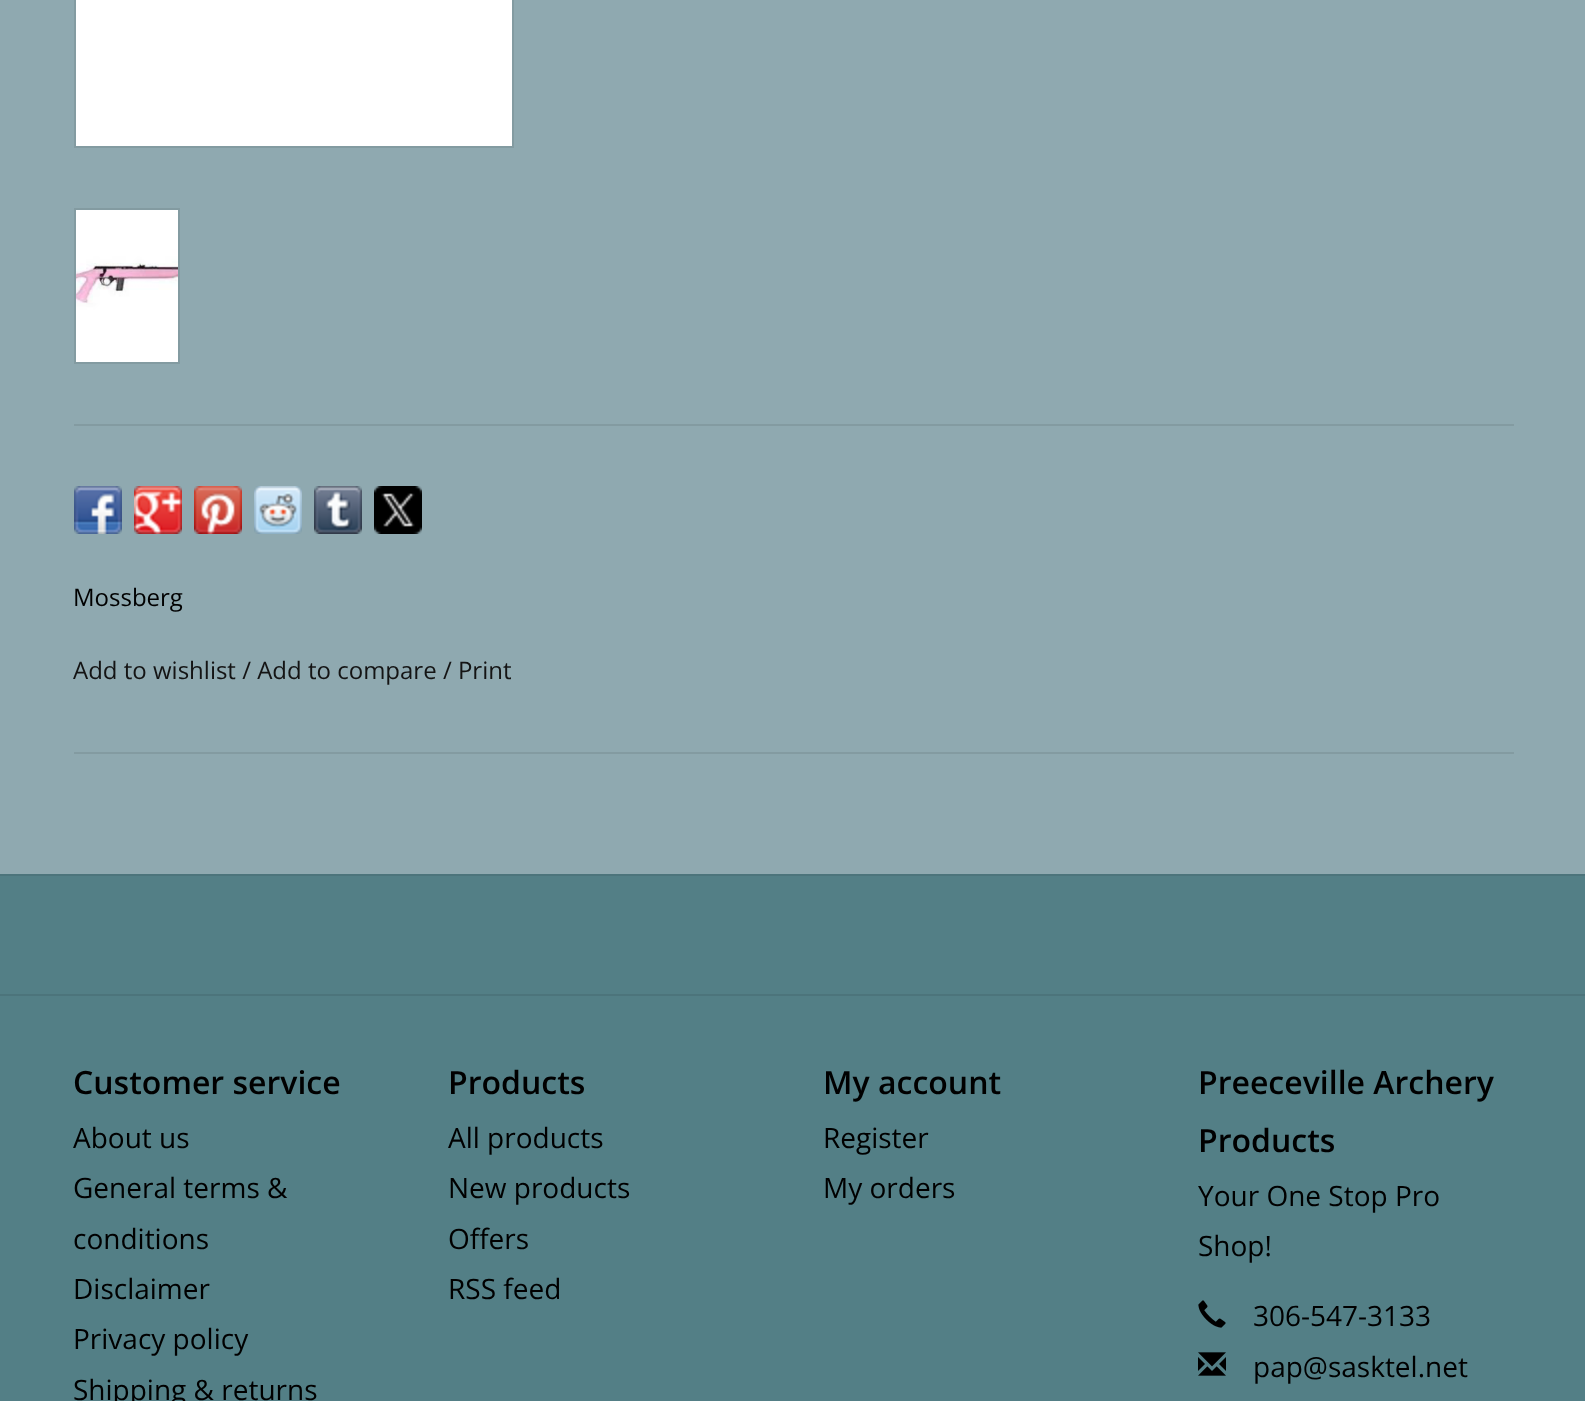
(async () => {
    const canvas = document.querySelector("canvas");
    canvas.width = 1585;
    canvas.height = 1401;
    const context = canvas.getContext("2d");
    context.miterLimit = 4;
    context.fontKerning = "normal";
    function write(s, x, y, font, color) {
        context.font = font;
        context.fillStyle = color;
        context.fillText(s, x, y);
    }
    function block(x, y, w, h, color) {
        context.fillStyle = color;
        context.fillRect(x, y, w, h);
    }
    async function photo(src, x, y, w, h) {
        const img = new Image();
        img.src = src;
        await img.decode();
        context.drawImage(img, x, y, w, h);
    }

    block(0, 0, 1585, 1401, "rgb(143, 169, 176)");
    context.strokeStyle = "rgb(131, 155, 161)";
    context.lineWidth = 2;
    context.strokeRect(75, -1, 438, 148);
    block(76, 0, 436, 146, "rgb(255, 255, 255)");
    context.strokeRect(75, 209, 104, 154);
    await photo("media/1.png", 76, 210, 102, 152);
    block(74, 424, 1440, 2, "rgb(131, 155, 161)");
    block(74, 752, 1440, 2, "rgb(131, 155, 161)");
    await photo("media/2.png", 74, 486, 48, 48);
    await photo("media/3.png", 134, 486, 48, 48);
    await photo("media/4.png", 194, 486, 48, 48);
    await photo("media/5.png", 254, 486, 48, 48);
    await photo("media/6.png", 314, 486, 48, 48);
    await photo("media/7.png", 374, 486, 48, 48);
    write("Mossberg", 73, 606, "24px Open Sans", "rgb(0, 0, 0)");
    write("Add to wishlist / Add to compare / Print", 73, 679, "24px Open Sans", "rgb(20, 20, 20)");
    block(0, 876, 1585, 525, "rgb(83, 127, 134)");
    block(0, 874, 1585, 2, "rgb(76, 116, 123)");
    block(0, 994, 1585, 2, "rgb(76, 116, 123)");
    write("Customer service", 73, 1094, "600 32px Open Sans", "rgb(0, 0, 0)");
    write("About us", 73, 1148, "28px Open Sans", "rgb(0, 0, 0)");
    write("General terms &", 73, 1198, "28px Open Sans", "rgb(0, 0, 0)");
    write("conditions", 73, 1249, "28px Open Sans", "rgb(0, 0, 0)");
    write("Disclaimer", 73, 1299, "28px Open Sans", "rgb(0, 0, 0)");
    write("Privacy policy", 73, 1349, "28px Open Sans", "rgb(0, 0, 0)");
    write("Shipping & returns", 73, 1400, "28px Open Sans", "rgb(0, 0, 0)");
    write("Products", 448, 1094, "600 32px Open Sans", "rgb(0, 0, 0)");
    write("All products", 448, 1148, "28px Open Sans", "rgb(0, 0, 0)");
    write("New products", 448, 1198, "28px Open Sans", "rgb(0, 0, 0)");
    write("Offers", 448, 1249, "28px Open Sans", "rgb(0, 0, 0)");
    write("RSS feed", 448, 1299, "28px Open Sans", "rgb(0, 0, 0)");
    write("My account", 823, 1094, "600 32px Open Sans", "rgb(0, 0, 0)");
    write("Register", 823, 1148, "28px Open Sans", "rgb(0, 0, 0)");
    write("My orders", 823, 1198, "28px Open Sans", "rgb(0, 0, 0)");
    write("Preeceville Archery", 1198, 1094, "600 32px Open Sans", "rgb(0, 0, 0)");
    write("Products", 1198, 1152, "600 32px Open Sans", "rgb(0, 0, 0)");
    write("Your One Stop Pro", 1198, 1206, "28px Open Sans", "rgb(0, 0, 0)");
    write("Shop!", 1198, 1256, "28px Open Sans", "rgb(0, 0, 0)");
    await photo("media/8.png", 1198, 1300, 28, 28);
    write("306-547-3133", 1253, 1326, "28px Open Sans", "rgb(0, 0, 0)");
    await photo("media/9.png", 1198, 1352, 28, 24);
    write("pap@sasktel.net", 1253, 1377, "28px Open Sans", "rgb(0, 0, 0)");
})();
